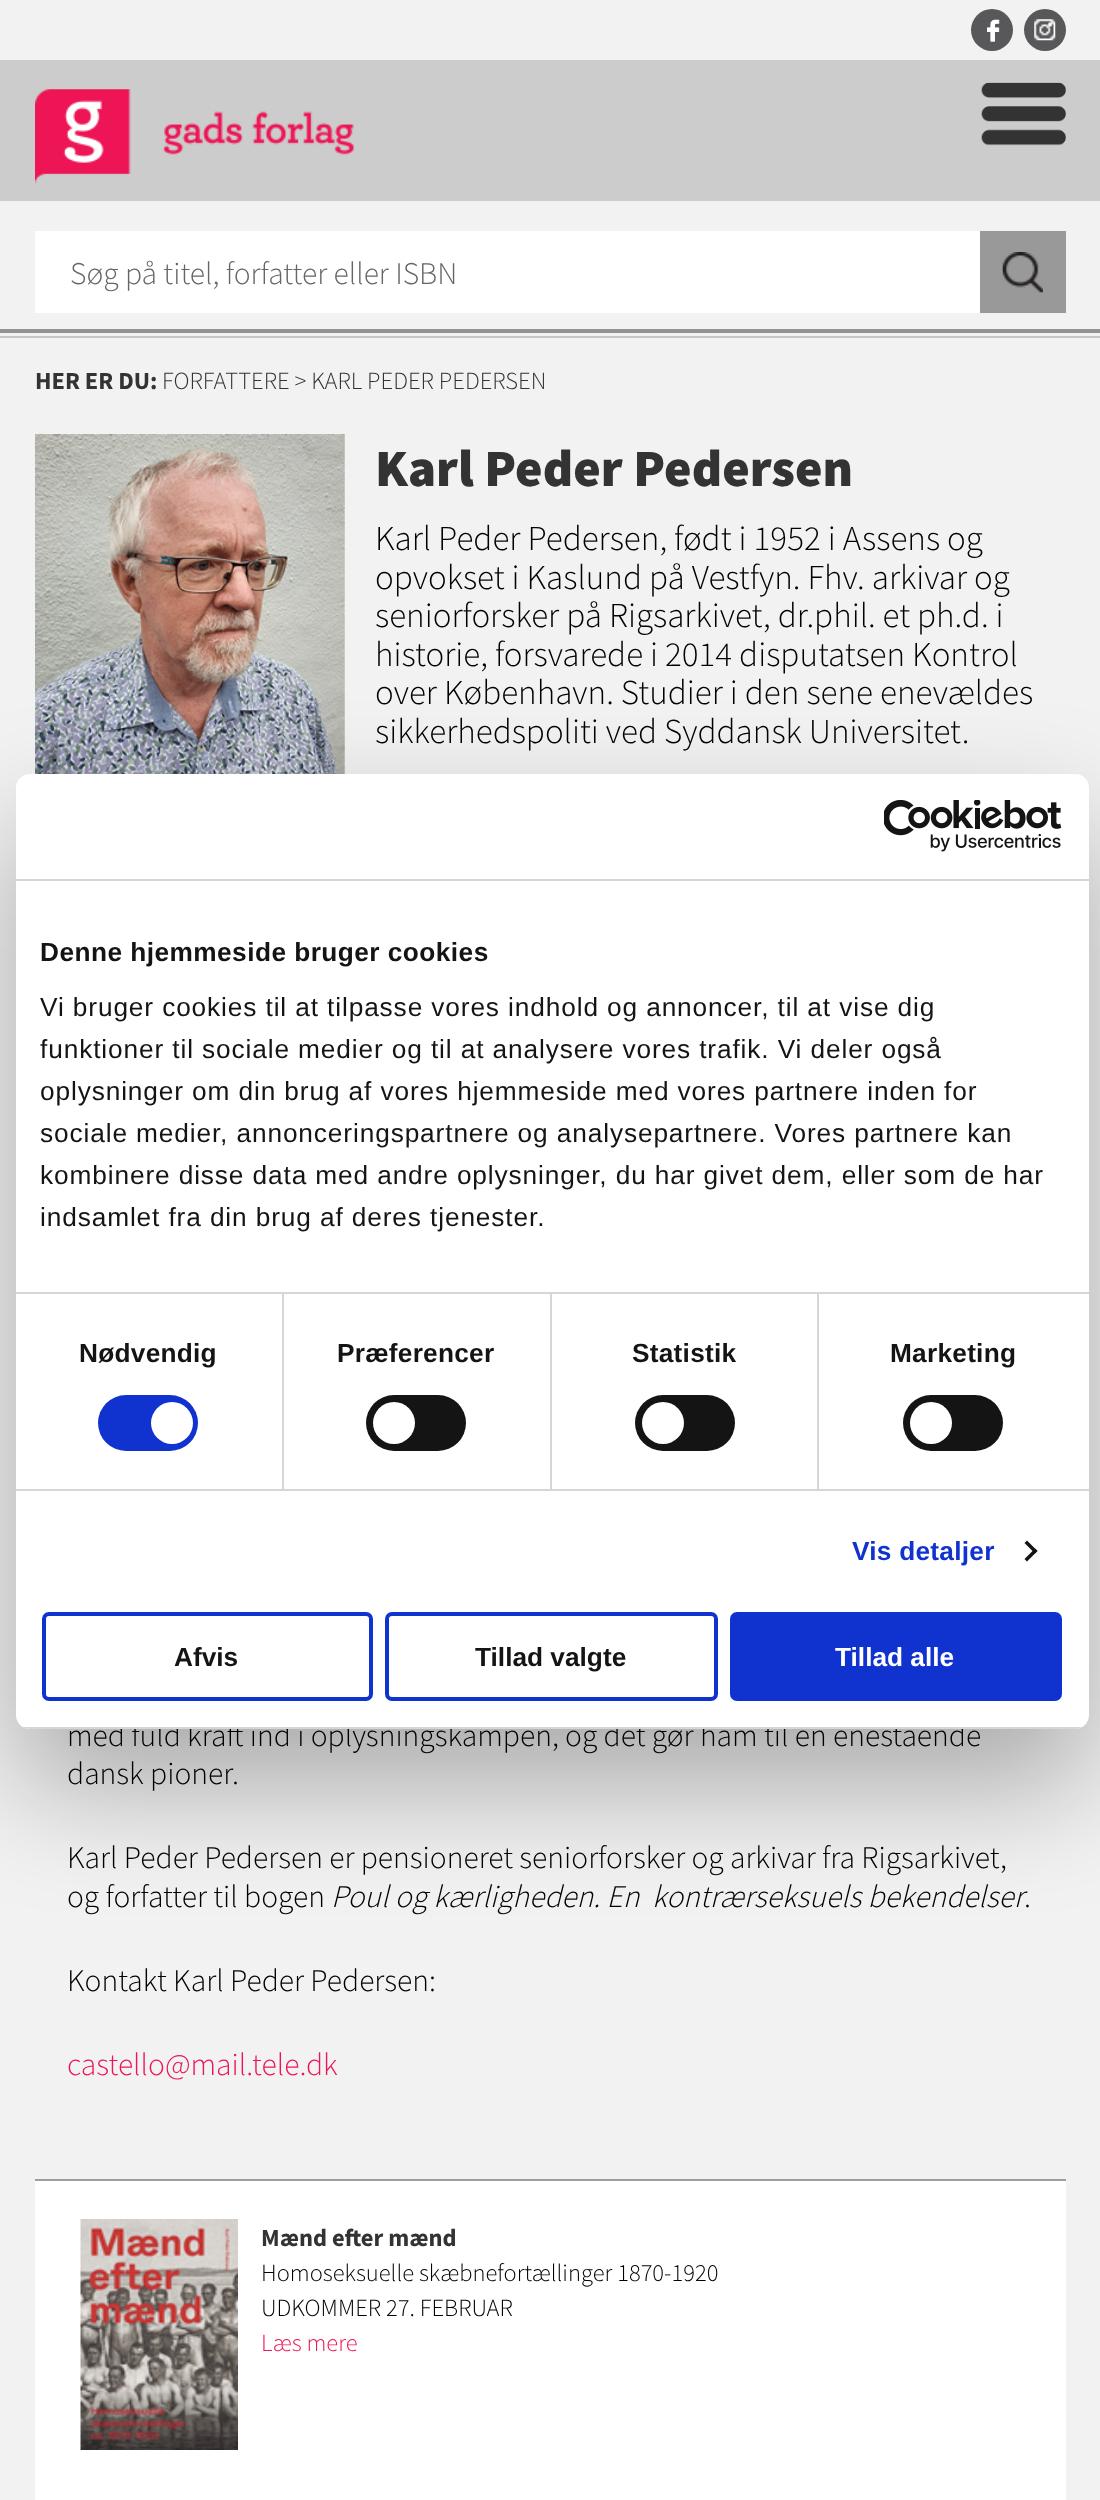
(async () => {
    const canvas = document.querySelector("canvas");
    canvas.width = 1100;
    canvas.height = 2500;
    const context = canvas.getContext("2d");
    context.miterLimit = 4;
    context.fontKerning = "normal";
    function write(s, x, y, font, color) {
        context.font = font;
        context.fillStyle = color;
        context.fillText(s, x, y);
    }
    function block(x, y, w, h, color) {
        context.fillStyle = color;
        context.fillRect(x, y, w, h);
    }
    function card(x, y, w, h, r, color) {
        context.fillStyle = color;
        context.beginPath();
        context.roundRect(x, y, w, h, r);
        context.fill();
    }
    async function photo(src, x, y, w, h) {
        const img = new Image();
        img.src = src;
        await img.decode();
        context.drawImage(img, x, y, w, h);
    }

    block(0, 0, 1100, 2500, "rgb(242, 242, 242)");
    block(0, 329, 1100, 4, "rgb(146, 146, 146)");
    block(0, 60, 1100, 141, "rgb(204, 204, 204)");
    await photo("media/1.png", 981, 82, 85, 64);
    block(0, 336, 1100, 2, "rgb(197, 197, 197)");
    context.fillStyle = "rgb(88, 88, 90)";
    context.beginPath();
    context.arc(992, 30, 21, 0, Math.PI * 2);
    context.fill();
    await photo("media/2.png", 987, 19, 13, 23);
    context.beginPath();
    context.arc(1045, 30, 21, 0, Math.PI * 2);
    context.fill();
    await photo("media/3.png", 1034, 19, 22, 22);
    await photo("media/4.png", 35, 89, 319, 95);
    block(35, 231, 945, 82, "rgb(255, 255, 255)");
    write("Søg på titel, forfatter eller ISBN", 70, 284, "300 31.5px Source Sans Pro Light", "rgb(102, 102, 102)");
    block(980, 231, 86, 82, "rgb(153, 153, 153)");
    await photo("media/5.png", 1002, 252, 41, 41);
    write("HER ER DU:", 35, 389, "bold 24.5px Source Sans Pro", "rgb(51, 51, 51)");
    write("FORFATTERE > KARL PEDER PEDERSEN", 162, 389, "300 24.5px Source Sans Pro Light", "rgb(51, 51, 51)");
    await photo("media/6.png", 35, 434, 310, 340);
    write("Karl Peder Pedersen", 375, 486, "900 52.5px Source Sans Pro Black", "rgb(51, 51, 51)");
    write("Karl Peder Pedersen, født i 1952 i Assens og", 375, 550, "300 35px Source Sans Pro Light", "rgb(0, 0, 0)");
    write("opvokset i Kaslund på Vestfyn. Fhv. arkivar og", 375, 589, "300 35px Source Sans Pro Light", "rgb(0, 0, 0)");
    write("seniorforsker på Rigsarkivet, dr.phil. et ph.d. i", 375, 627, "300 35px Source Sans Pro Light", "rgb(0, 0, 0)");
    write("historie, forsvarede i 2014 disputatsen Kontrol", 375, 666, "300 35px Source Sans Pro Light", "rgb(0, 0, 0)");
    write("over København. Studier i den sene enevældes", 375, 704, "300 35px Source Sans Pro Light", "rgb(0, 0, 0)");
    write("sikkerhedspoliti ved Syddansk Universitet.", 375, 743, "300 35px Source Sans Pro Light", "rgb(0, 0, 0)");
    block(35, 2179, 1031, 2, "rgb(156, 157, 158)");
    write("med fuld kraft ind i oplysningskampen, og det gør ham til en enestående", 67, 1746, "300 31.5px Source Sans Pro Light", "rgb(0, 0, 0)");
    write("dansk pioner.", 67, 1784, "300 31.5px Source Sans Pro Light", "rgb(0, 0, 0)");
    write("Karl Peder Pedersen er pensioneret seniorforsker og arkivar fra Rigsarkivet,", 67, 1868, "300 31.5px Source Sans Pro Light", "rgb(0, 0, 0)");
    write("og forfatter til bogen", 67, 1907, "300 31.5px Source Sans Pro Light", "rgb(0, 0, 0)");
    write("Poul og kærligheden. En  kontrærseksuels bekendelser", 331, 1907, "italic 300 31.5px Source Sans Pro Light", "rgb(0, 0, 0)");
    write(".", 1024, 1907, "300 31.5px Source Sans Pro Light", "rgb(0, 0, 0)");
    write("Kontakt Karl Peder Pedersen:", 67, 1991, "300 31.5px Source Sans Pro Light", "rgb(0, 0, 0)");
    write("castello@mail.tele.dk", 67, 2075, "300 31.5px Source Sans Pro Light", "rgb(237, 21, 86)");
    block(35, 2181, 1031, 319, "rgb(255, 255, 255)");
    await photo("media/7.png", 80, 2219, 158, 231);
    write("Mænd efter mænd", 261, 2246, "bold 24.5px Source Sans Pro", "rgb(51, 51, 51)");
    write("Homoseksuelle skæbnefortællinger 1870-1920", 261, 2281, "300 24.5px Source Sans Pro Light", "rgb(0, 0, 0)");
    write("UDKOMMER 27. FEBRUAR", 261, 2316, "300 24.5px Source Sans Pro Light", "rgb(0, 0, 0)");
    write("Læs mere", 261, 2351, "300 24.5px Source Sans Pro Light", "rgb(237, 21, 86)");
    context.fillStyle = "rgba(0, 0, 0, 0.3)";
    context.filter = "blur(59.5px)";
    context.beginPath();
    context.roundRect(16, 830, 1073, 955, 14);
    context.fill();
    context.filter = "none";
    card(16, 774, 1073, 955, 14, "rgb(255, 255, 255)");
    block(16, 879, 1073, 2, "rgb(214, 214, 214)");
    await photo("media/8.png", 884, 800, 178, 52);
    block(282, 1293, 2, 196, "rgb(214, 214, 214)");
    block(550, 1293, 2, 196, "rgb(214, 214, 214)");
    block(817, 1293, 2, 196, "rgb(214, 214, 214)");
    block(16, 1292, 1073, 2, "rgb(214, 214, 214)");
    context.letterSpacing = "0.45px";
    write("Denne hjemmeside bruger cookies", 40, 961, "bold 26.25px Liberation Sans", "rgb(20, 20, 20)");
    context.letterSpacing = "0.88px";
    write("Vi bruger cookies til at tilpasse vores indhold og annoncer, til at vise dig", 40, 1016, "26.25px Liberation Sans", "rgb(20, 20, 20)");
    write("funktioner til sociale medier og til at analysere vores trafik. Vi deler også", 40, 1058, "26.25px Liberation Sans", "rgb(20, 20, 20)");
    write("oplysninger om din brug af vores hjemmeside med vores partnere inden for", 40, 1100, "26.25px Liberation Sans", "rgb(20, 20, 20)");
    write("sociale medier, annonceringspartnere og analysepartnere. Vores partnere kan", 40, 1142, "26.25px Liberation Sans", "rgb(20, 20, 20)");
    write("kombinere disse data med andre oplysninger, du har givet dem, eller som de har", 40, 1184, "26.25px Liberation Sans", "rgb(20, 20, 20)");
    write("indsamlet fra din brug af deres tjenester.", 40, 1226, "26.25px Liberation Sans", "rgb(20, 20, 20)");
    block(16, 1489, 1073, 2, "rgb(214, 214, 214)");
    context.letterSpacing = "0.25px";
    write("Nødvendig", 79, 1362, "bold 26.25px Liberation Sans", "rgb(20, 20, 20)");
    card(98, 1395, 100, 56, 28, "rgb(16, 50, 207)");
    context.fillStyle = "rgb(255, 255, 255)";
    context.beginPath();
    context.arc(172, 1423, 21, 0, Math.PI * 2);
    context.fill();
    write("Præferencer", 337, 1362, "bold 26.25px Liberation Sans", "rgb(20, 20, 20)");
    card(366, 1395, 100, 56, 28, "rgb(20, 20, 20)");
    context.fillStyle = "rgb(255, 255, 255)";
    context.beginPath();
    context.arc(394, 1423, 21, 0, Math.PI * 2);
    context.fill();
    write("Statistik", 632, 1362, "bold 26.25px Liberation Sans", "rgb(20, 20, 20)");
    card(635, 1395, 100, 56, 28, "rgb(20, 20, 20)");
    context.fillStyle = "rgb(255, 255, 255)";
    context.beginPath();
    context.arc(663, 1423, 21, 0, Math.PI * 2);
    context.fill();
    write("Marketing", 890, 1362, "bold 26.25px Liberation Sans", "rgb(20, 20, 20)");
    card(903, 1395, 100, 56, 28, "rgb(20, 20, 20)");
    context.fillStyle = "rgb(255, 255, 255)";
    context.beginPath();
    context.arc(931, 1423, 21, 0, Math.PI * 2);
    context.fill();
    write("Vis detaljer", 852, 1560, "bold 26.25px Liberation Sans", "rgb(16, 50, 207)");
    context.fillStyle = "rgb(20, 20, 20)";
    context.beginPath();
    context.moveTo(1027, 1540.5);
    context.lineTo(1037.5, 1551);
    context.lineTo(1035, 1553.5);
    context.lineTo(1024.5, 1543);
    context.closePath();
    context.fill();
    context.beginPath();
    context.moveTo(1035, 1548.5);
    context.lineTo(1037.5, 1551);
    context.lineTo(1027, 1561.5);
    context.lineTo(1024.5, 1559);
    context.closePath();
    context.fill();
    context.save();
    context.beginPath();
    context.roundRect(16, 774, 1073, 955, 14);
    context.clip();
    block(16, 1727, 1073, 2, "rgb(214, 214, 214)");
    context.restore();
    context.beginPath();
    context.roundRect(44, 1614, 327, 85, 5);
    context.strokeStyle = "rgb(16, 50, 207)";
    context.lineWidth = 4;
    context.stroke();
    context.letterSpacing = "0px";
    write("Afvis", 174, 1666, "bold 26.25px Liberation Sans", "rgb(20, 20, 20)");
    context.beginPath();
    context.roundRect(387, 1614, 329, 85, 5);
    context.stroke();
    write("Tillad valgte", 475, 1666, "bold 26.25px Liberation Sans", "rgb(20, 20, 20)");
    context.fillStyle = "rgb(16, 50, 207)";
    context.beginPath();
    context.roundRect(732, 1614, 328, 85, 5);
    context.fill();
    context.stroke();
    write("Tillad alle", 835, 1666, "bold 26.25px Liberation Sans", "rgb(255, 255, 255)");
})();
